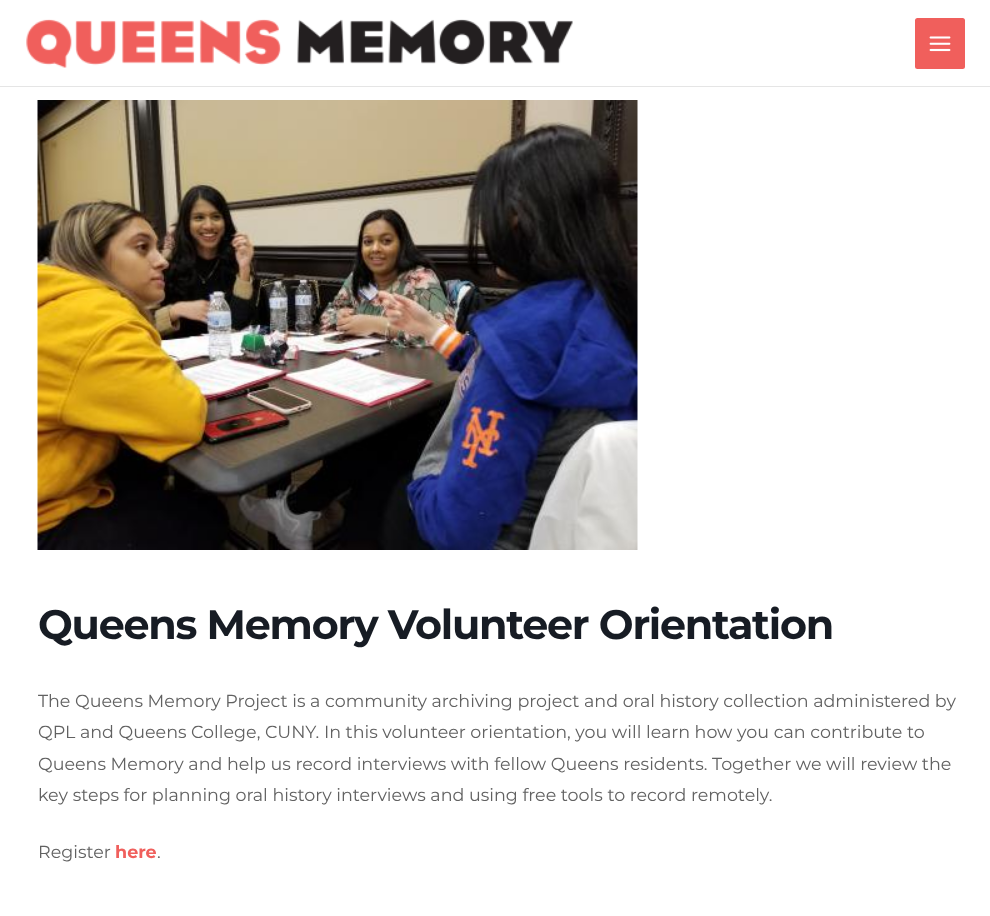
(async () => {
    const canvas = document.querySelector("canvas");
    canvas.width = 990;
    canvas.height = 916;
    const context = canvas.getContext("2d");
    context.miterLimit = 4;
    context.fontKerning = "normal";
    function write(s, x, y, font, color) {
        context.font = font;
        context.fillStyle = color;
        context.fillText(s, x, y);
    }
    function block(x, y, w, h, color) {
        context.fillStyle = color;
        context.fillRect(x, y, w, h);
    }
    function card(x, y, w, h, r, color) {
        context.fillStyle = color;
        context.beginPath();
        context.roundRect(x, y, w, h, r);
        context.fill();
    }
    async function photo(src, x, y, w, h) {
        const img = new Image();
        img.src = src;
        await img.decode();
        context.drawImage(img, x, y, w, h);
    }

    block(0, 0, 990, 916, "rgb(255, 255, 255)");
    block(0, 86, 990, 1, "rgb(229, 229, 229)");
    await photo("media/1.png", 26, 19, 547, 49);
    card(915, 18, 50, 51, 2.5, "rgb(240, 95, 92)");
    await photo("media/2.png", 929, 36, 22, 16);
    await photo("media/3.png", 37, 100, 601, 450);
    context.letterSpacing = "-1.25px";
    write("Queens Memory Volunteer Orientation", 38, 639, "bold 41.25px Montserrat", "rgb(23, 28, 36)");
    context.letterSpacing = "0px";
    write("The Queens Memory Project is a community archiving project and oral history collection administered by", 38, 707, "17.5px Montserrat", "rgb(97, 97, 97)");
    write("QPL and Queens College, CUNY. In this volunteer orientation, you will learn how you can contribute to", 38, 738, "17.5px Montserrat", "rgb(97, 97, 97)");
    write("Queens Memory and help us record interviews with fellow Queens residents. Together we will review the", 38, 770, "17.5px Montserrat", "rgb(97, 97, 97)");
    write("key steps for planning oral history interviews and using free tools to record remotely.", 38, 801, "17.5px Montserrat", "rgb(97, 97, 97)");
    write("Register", 38, 858, "17.5px Montserrat", "rgb(97, 97, 97)");
    write("here", 115, 858, "bold 17.5px Montserrat", "rgb(240, 95, 92)");
    write(".", 157, 858, "17.5px Montserrat", "rgb(97, 97, 97)");
})();
